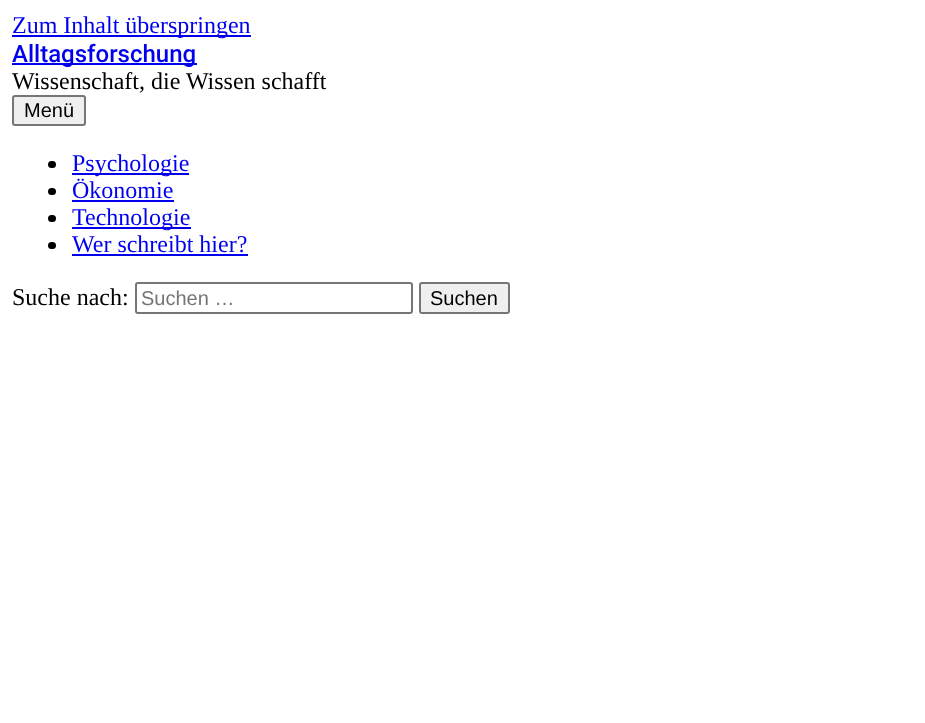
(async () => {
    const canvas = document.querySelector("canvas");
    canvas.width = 925;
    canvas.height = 723;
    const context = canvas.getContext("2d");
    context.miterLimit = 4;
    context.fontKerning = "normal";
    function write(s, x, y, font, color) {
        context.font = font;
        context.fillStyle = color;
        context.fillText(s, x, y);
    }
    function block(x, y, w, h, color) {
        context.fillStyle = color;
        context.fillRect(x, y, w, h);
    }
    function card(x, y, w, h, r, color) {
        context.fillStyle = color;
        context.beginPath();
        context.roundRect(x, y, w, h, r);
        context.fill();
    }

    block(0, 0, 925, 723, "rgb(255, 255, 255)");
    block(12, 35, 239, 2, "rgb(0, 0, 238)");
    write("Zum Inhalt überspringen", 12, 33, "24px Liberation Serif", "rgb(0, 0, 238)");
    block(12, 63, 185, 2, "rgb(0, 0, 238)");
    write("Alltagsforschung", 12, 62, "500 24px Roboto", "rgb(0, 0, 238)");
    write("Wissenschaft, die Wissen schafft", 12, 89, "24px Liberation Serif", "rgb(0, 0, 0)");
    context.fillStyle = "rgb(239, 239, 239)";
    context.beginPath();
    context.roundRect(13, 96, 72, 29, 2);
    context.fill();
    context.strokeStyle = "rgb(118, 118, 118)";
    context.lineWidth = 2;
    context.stroke();
    write("Menü", 24, 117, "20px Liberation Sans", "rgb(0, 0, 0)");
    card(48, 161, 8, 7, 3.5, "rgb(0, 0, 0)");
    block(72, 173, 117, 2, "rgb(0, 0, 238)");
    write("Psychologie", 72, 171, "24px Liberation Serif", "rgb(0, 0, 238)");
    card(48, 188, 8, 7, 3.5, "rgb(0, 0, 0)");
    write("Ökonomie", 72, 198, "24px Liberation Serif", "rgb(0, 0, 238)");
    block(72, 200, 102, 2, "rgb(0, 0, 238)");
    card(48, 215, 8, 7, 3.5, "rgb(0, 0, 0)");
    block(72, 227, 119, 2, "rgb(0, 0, 238)");
    write("Technologie", 72, 225, "24px Liberation Serif", "rgb(0, 0, 238)");
    card(48, 242, 8, 7, 3.5, "rgb(0, 0, 0)");
    write("Wer schreibt hier?", 72, 252, "24px Liberation Serif", "rgb(0, 0, 238)");
    block(72, 254, 176, 2, "rgb(0, 0, 238)");
    write("Suche nach:", 12, 305, "24px Liberation Serif", "rgb(0, 0, 0)");
    context.beginPath();
    context.roundRect(136, 283, 276, 30, 2);
    context.stroke();
    write("Suchen …", 141, 305, "20px Liberation Sans", "rgb(117, 117, 117)");
    context.fillStyle = "rgb(239, 239, 239)";
    context.beginPath();
    context.roundRect(420, 283, 89, 30, 2);
    context.fill();
    context.stroke();
    write("Suchen", 430, 305, "20px Liberation Sans", "rgb(0, 0, 0)");
})();
